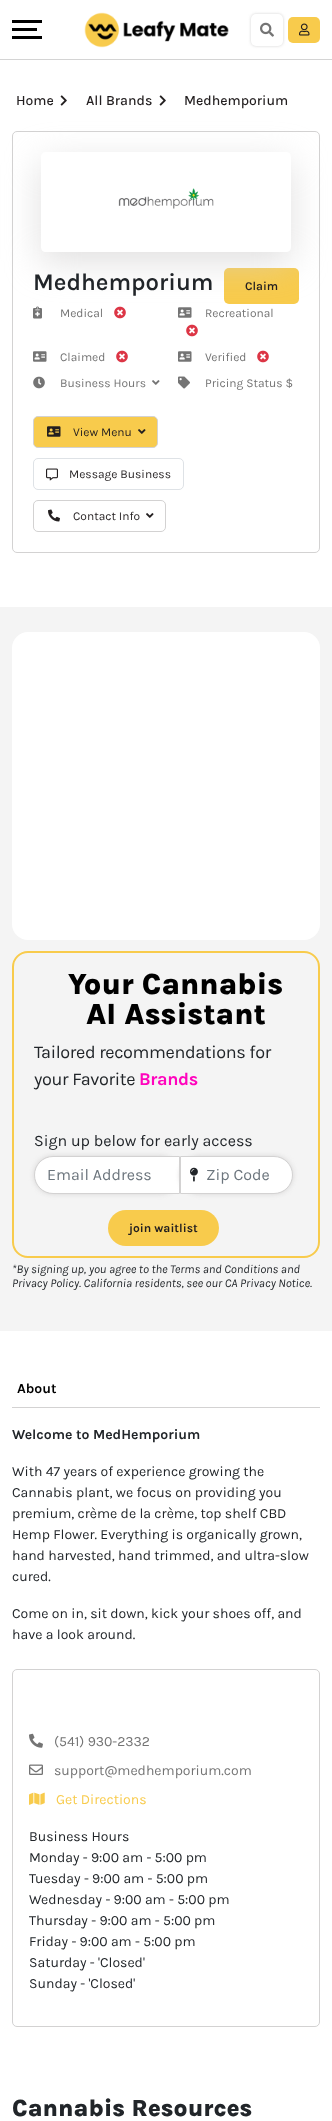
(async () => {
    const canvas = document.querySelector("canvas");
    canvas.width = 332;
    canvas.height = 2121;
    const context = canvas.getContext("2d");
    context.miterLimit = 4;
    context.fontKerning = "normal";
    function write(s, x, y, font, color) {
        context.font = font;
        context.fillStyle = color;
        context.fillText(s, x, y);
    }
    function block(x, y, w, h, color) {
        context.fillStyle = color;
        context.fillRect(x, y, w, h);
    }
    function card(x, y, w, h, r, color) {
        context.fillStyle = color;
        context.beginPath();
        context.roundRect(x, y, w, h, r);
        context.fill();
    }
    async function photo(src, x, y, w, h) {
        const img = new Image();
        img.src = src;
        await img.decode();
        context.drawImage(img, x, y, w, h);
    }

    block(0, 0, 332, 2121, "rgb(255, 255, 255)");
    block(0, 59, 332, 1, "rgb(212, 212, 212)");
    block(12, 28, 25, 3, "rgb(0, 0, 0)");
    block(12, 20, 30, 3, "rgb(0, 0, 0)");
    block(12, 36, 30, 3, "rgb(0, 0, 0)");
    await photo("media/1.png", 84, 12, 145, 36);
    context.fillStyle = "rgb(211, 210, 210)";
    context.filter = "blur(1.5px)";
    context.beginPath();
    context.roundRect(251, 14, 32, 32, 5);
    context.fill();
    context.filter = "none";
    card(251, 14, 32, 32, 5, "rgb(255, 255, 255)");
    await photo("media/2.png", 260, 22, 14, 15);
    card(288, 17, 32, 26, 5, "rgb(248, 203, 76)");
    await photo("media/3.png", 299, 23, 11, 13);
    write("Home", 16, 105, "500 14px Karla", "rgb(35, 31, 32)");
    await photo("media/4.png", 60, 95, 7, 11);
    write("All Brands", 86, 105, "500 14px Karla", "rgb(35, 31, 32)");
    await photo("media/4.png", 159, 95, 7, 11);
    context.beginPath();
    context.roundRect(12.5, 131.5, 307, 421, 4.5);
    context.strokeStyle = "rgb(211, 210, 210)";
    context.stroke();
    card(224, 268, 75, 36, 5, "rgb(248, 203, 76)");
    await photo("media/6.png", 33, 306, 9, 13);
    await photo("media/7.png", 114, 306, 12, 13);
    await photo("media/8.png", 178, 307, 14, 11);
    context.save();
    context.beginPath();
    context.moveTo(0, 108);
    context.lineTo(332, 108);
    context.lineTo(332, 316);
    context.lineTo(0, 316);
    context.closePath();
    context.moveTo(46, 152);
    context.lineTo(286, 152);
    context.bezierCurveTo(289, 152, 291, 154, 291, 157);
    context.lineTo(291, 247);
    context.bezierCurveTo(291, 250, 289, 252, 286, 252);
    context.lineTo(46, 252);
    context.bezierCurveTo(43, 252, 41, 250, 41, 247);
    context.lineTo(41, 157);
    context.bezierCurveTo(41, 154, 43, 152, 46, 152);
    context.closePath();
    context.clip("evenodd");
    context.fillStyle = "rgba(211, 210, 210, 0.7)";
    context.filter = "blur(17.5px)";
    context.beginPath();
    context.roundRect(41, 162, 250, 100, 5);
    context.fill();
    context.filter = "none";
    context.restore();
    write("Medhemporium", 184, 105, "500 14px Karla", "rgb(35, 31, 32)");
    await photo("media/5.png", 118, 188, 96, 21);
    write("Medhemporium", 33, 290, "600 24px Karla", "rgb(33, 37, 41)");
    write("Claim", 245, 290, "600 12px Karla", "rgb(35, 31, 32)");
    write("Medical", 60, 317, "12px Karla", "rgb(116, 116, 116)");
    write("Recreational", 205, 317, "12px Karla", "rgb(116, 116, 116)");
    await photo("media/7.png", 186, 324, 12, 13);
    await photo("media/8.png", 33, 351, 14, 11);
    write("Claimed", 60, 361, "12px Karla", "rgb(116, 116, 116)");
    await photo("media/7.png", 116, 350, 12, 13);
    await photo("media/8.png", 178, 351, 14, 11);
    write("Verified", 205, 361, "12px Karla", "rgb(116, 116, 116)");
    await photo("media/7.png", 257, 350, 12, 13);
    await photo("media/9.png", 33, 376, 12, 13);
    write("Business Hours", 60, 387, "12px Karla", "rgb(116, 116, 116)");
    await photo("media/10.png", 152, 380, 8, 5);
    await photo("media/11.png", 178, 376, 12, 13);
    write("Pricing Status $", 205, 387, "12px Karla", "rgb(116, 116, 116)");
    context.fillStyle = "rgb(248, 203, 76)";
    context.beginPath();
    context.roundRect(33.5, 416.5, 124, 31, 4.5);
    context.fill();
    context.stroke();
    await photo("media/12.png", 47, 426, 14, 11);
    write("View Menu", 73, 436, "12px Karla", "rgb(35, 31, 32)");
    await photo("media/13.png", 138, 429, 8, 5);
    context.beginPath();
    context.roundRect(33.5, 458.5, 150, 31, 4.5);
    context.strokeStyle = "rgb(222, 226, 230)";
    context.stroke();
    await photo("media/14.png", 46, 468, 12, 13);
    write("Message Business", 69, 478, "12px Karla", "rgb(35, 31, 32)");
    context.beginPath();
    context.roundRect(33.5, 500.5, 132, 31, 4.5);
    context.strokeStyle = "rgb(211, 210, 210)";
    context.stroke();
    await photo("media/15.png", 48, 509, 12, 13);
    write("Contact Info", 73, 520, "12px Karla", "rgb(35, 31, 32)");
    await photo("media/16.png", 146, 513, 8, 5);
    block(0, 607, 332, 724, "rgb(244, 244, 244)");
    card(12, 632, 308, 308, 16, "rgb(255, 255, 255)");
    context.beginPath();
    context.roundRect(13, 952, 306, 305, 15);
    context.strokeStyle = "rgb(248, 203, 76)";
    context.lineWidth = 2;
    context.stroke();
    write("Your Cannabis", 68, 994, "800 30px Karla", "rgb(0, 0, 0)");
    write("AI Assistant", 86, 1024, "800 30px Karla", "rgb(0, 0, 0)");
    context.letterSpacing = "-0.35px";
    write("Tailored recommendations for", 34, 1058, "18px Karla", "rgb(33, 37, 41)");
    write("your Favorite", 34, 1085, "18px Karla", "rgb(33, 37, 41)");
    write("Brands", 139, 1085, "bold 18px Karla", "rgb(255, 4, 189)");
    context.letterSpacing = "0px";
    write("Sign up below for early access", 34, 1146, "16px Karla", "rgb(33, 37, 41)");
    context.fillStyle = "rgba(211, 210, 210, 0.9)";
    context.filter = "blur(2.5px)";
    context.beginPath();
    context.roundRect(34, 1156, 146, 38, 19);
    context.fill();
    context.filter = "none";
    context.fillStyle = "rgb(255, 255, 255)";
    context.beginPath();
    context.roundRect(34.5, 1156.5, 145, 37, [18.5, 0, 0, 18.5]);
    context.fill();
    context.strokeStyle = "rgb(211, 210, 210)";
    context.lineWidth = 1;
    context.stroke();
    write("Email Address", 47, 1180, "16px Karla", "rgb(108, 117, 125)");
    context.fillStyle = "rgba(211, 210, 210, 0.9)";
    context.filter = "blur(2.5px)";
    context.beginPath();
    context.roundRect(180, 1156, 113, 38, 19);
    context.fill();
    context.filter = "none";
    context.fillStyle = "rgb(255, 255, 255)";
    context.beginPath();
    context.roundRect(180.5, 1156.5, 112, 37, [0, 18.5, 18.5, 0]);
    context.fill();
    context.stroke();
    await photo("media/17.png", 190, 1167, 8, 15);
    write("Zip Code", 206, 1180, "16px Karla", "rgb(108, 117, 125)");
    card(108, 1210, 111, 36, 18, "rgb(248, 203, 76)");
    write("join waitlist", 129, 1232, "bold 12px Karla", "rgb(35, 31, 32)");
    write("*By signing up, you agree to the Terms and Conditions and", 12, 1273, "italic 12px Karla", "rgb(33, 37, 41)");
    write("Privacy Policy. California residents, see our CA Privacy Notice.", 12, 1287, "italic 12px Karla", "rgb(33, 37, 41)");
    block(12, 1407, 308, 1, "rgb(211, 210, 210)");
    write("About", 17, 1393, "bold 14px Karla", "rgb(0, 0, 0)");
    write("Welcome to MedHemporium", 12, 1439, "bold 14px Karla", "rgb(33, 37, 41)");
    write("With 47 years of experience growing the", 12, 1476, "14px Karla", "rgb(33, 37, 41)");
    write("Cannabis plant, we focus on providing you", 12, 1497, "14px Karla", "rgb(33, 37, 41)");
    write("premium, crème de la crème, top shelf CBD", 12, 1518, "14px Karla", "rgb(33, 37, 41)");
    write("Hemp Flower. Everything is organically grown,", 12, 1539, "14px Karla", "rgb(33, 37, 41)");
    write("hand harvested, hand trimmed, and ultra-slow", 12, 1560, "14px Karla", "rgb(33, 37, 41)");
    write("cured.", 12, 1581, "14px Karla", "rgb(33, 37, 41)");
    write("Come on in, sit down, kick your shoes off, and", 12, 1618, "14px Karla", "rgb(33, 37, 41)");
    write("have a look around.", 12, 1639, "14px Karla", "rgb(33, 37, 41)");
    context.beginPath();
    context.roundRect(12.5, 1669.5, 307, 357, 4.5);
    context.stroke();
    await photo("media/18.png", 29, 1733, 14, 15);
    write("(541) 930-2332", 54, 1746, "14px Karla", "rgb(116, 116, 116)");
    await photo("media/19.png", 29, 1764, 14, 11);
    write("support@medhemporium.com", 54, 1775, "14px Karla", "rgb(116, 116, 116)");
    await photo("media/20.png", 29, 1792, 16, 13);
    write("Get Directions", 56, 1804, "14px Karla", "rgb(248, 203, 76)");
    write("Business Hours", 29, 1841, "14px Karla", "rgb(33, 37, 41)");
    write("Monday - 9:00 am - 5:00 pm", 29, 1862, "14px Karla", "rgb(33, 37, 41)");
    write("Tuesday - 9:00 am - 5:00 pm", 29, 1883, "14px Karla", "rgb(33, 37, 41)");
    write("Wednesday - 9:00 am - 5:00 pm", 29, 1904, "14px Karla", "rgb(33, 37, 41)");
    write("Thursday - 9:00 am - 5:00 pm", 29, 1925, "14px Karla", "rgb(33, 37, 41)");
    write("Friday - 9:00 am - 5:00 pm", 29, 1946, "14px Karla", "rgb(33, 37, 41)");
    write("Saturday - 'Closed'", 29, 1967, "14px Karla", "rgb(33, 37, 41)");
    write("Sunday - 'Closed'", 29, 1988, "14px Karla", "rgb(33, 37, 41)");
    write("Cannabis Resources", 12, 2116, "800 24px Karla", "rgb(33, 37, 41)");
})();
